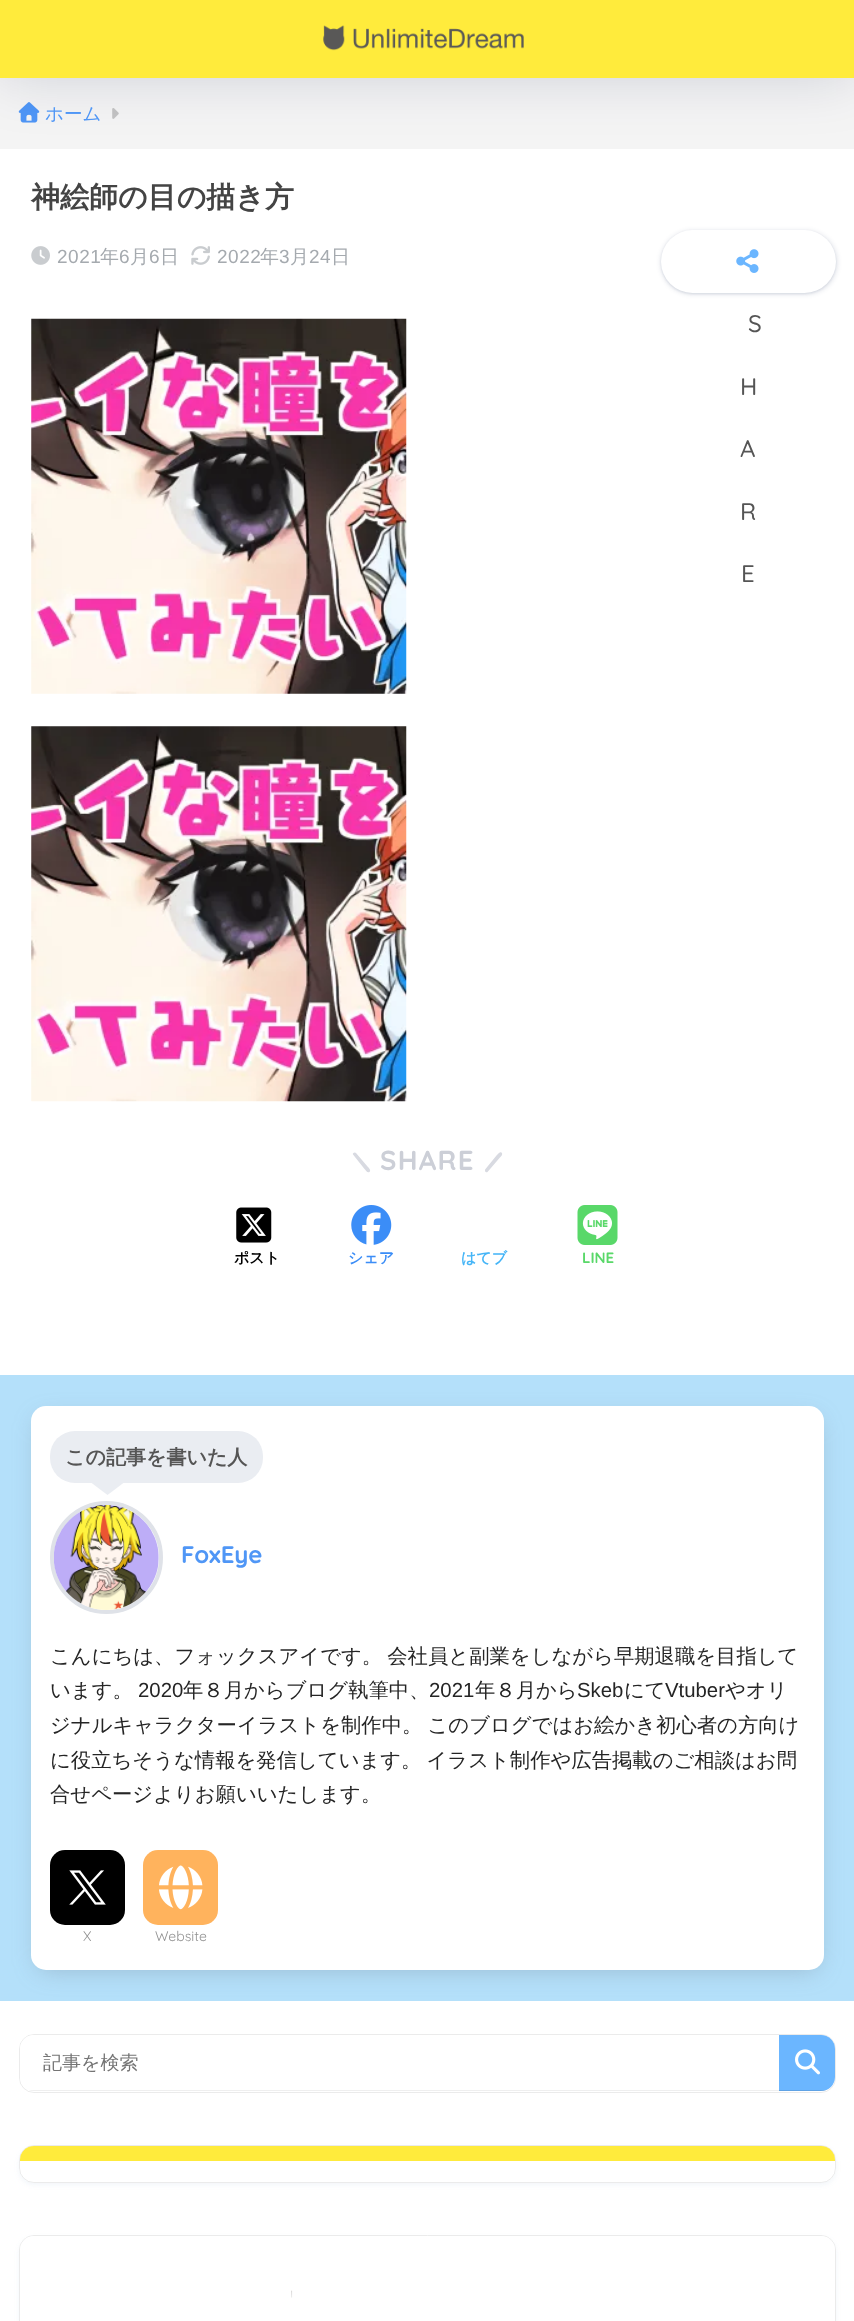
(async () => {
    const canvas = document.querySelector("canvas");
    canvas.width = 854;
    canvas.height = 2321;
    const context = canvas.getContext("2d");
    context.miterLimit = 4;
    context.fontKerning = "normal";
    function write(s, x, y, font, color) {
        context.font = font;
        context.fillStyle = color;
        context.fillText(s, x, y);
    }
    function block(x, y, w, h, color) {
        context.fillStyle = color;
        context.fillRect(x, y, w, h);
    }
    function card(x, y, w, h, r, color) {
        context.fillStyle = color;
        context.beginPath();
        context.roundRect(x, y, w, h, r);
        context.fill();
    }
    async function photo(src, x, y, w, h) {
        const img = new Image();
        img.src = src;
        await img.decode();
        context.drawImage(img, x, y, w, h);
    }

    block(0, 0, 854, 2321, "rgb(255, 255, 255)");
    block(0, 78, 854, 71, "rgb(244, 244, 244)");
    await photo("media/2.png", 18, 102, 22, 21);
    await photo("media/3.png", 112, 108, 7, 11);
    context.fillStyle = "rgba(0, 12, 66, 0.15)";
    context.filter = "blur(28px)";
    context.beginPath();
    context.rect(0, 0, 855, 78);
    context.fill();
    context.filter = "none";
    block(0, 0, 854, 78, "rgb(255, 235, 60)");
    await photo("media/1.png", 323, 25, 201, 26);
    write("ホーム", 45, 120, "500 18.5px WenQuanYi Zen Hei", "rgb(79, 150, 246)");
    write("神絵師の目の描き方", 31, 207, "bold 29px WenQuanYi Zen Hei", "rgb(68, 68, 68)");
    await photo("media/4.png", 31, 246, 19, 19);
    context.letterSpacing = "0.5px";
    write("2021", 57, 263, "19px Liberation Sans", "rgb(165, 170, 175)");
    write("年", 100, 263, "500 19px WenQuanYi Zen Hei", "rgb(165, 170, 175)");
    write("6", 119, 263, "19px Liberation Sans", "rgb(165, 170, 175)");
    write("月", 130, 263, "500 19px WenQuanYi Zen Hei", "rgb(165, 170, 175)");
    write("6", 149, 263, "19px Liberation Sans", "rgb(165, 170, 175)");
    write("日", 160, 263, "500 19px WenQuanYi Zen Hei", "rgb(165, 170, 175)");
    await photo("media/5.png", 191, 246, 19, 19);
    write("2022", 217, 263, "19px Liberation Sans", "rgb(165, 170, 175)");
    write("年", 260, 263, "500 19px WenQuanYi Zen Hei", "rgb(165, 170, 175)");
    write("3", 279, 263, "19px Liberation Sans", "rgb(165, 170, 175)");
    write("月", 290, 263, "500 19px WenQuanYi Zen Hei", "rgb(165, 170, 175)");
    write("24", 309, 263, "19px Liberation Sans", "rgb(165, 170, 175)");
    write("日", 331, 263, "500 19px WenQuanYi Zen Hei", "rgb(165, 170, 175)");
    context.fillStyle = "rgba(24, 44, 84, 0.1)";
    context.filter = "blur(2px)";
    context.beginPath();
    context.roundRect(660, 230, 178, 65, 32.5);
    context.fill();
    context.filter = "none";
    context.filter = "blur(1px)";
    context.beginPath();
    context.roundRect(661, 231, 175, 63, 31.5);
    context.fill();
    context.filter = "none";
    card(661, 230, 175, 63, 31.5, "rgb(255, 255, 255)");
    await photo("media/6.png", 736, 249, 23, 24);
    context.letterSpacing = "1.25px";
    write("S", 748, 332, "500 24px Quicksand", "rgb(85, 85, 85)");
    write("H", 740, 395, "500 24px Quicksand", "rgb(85, 85, 85)");
    write("A", 740, 457, "500 24px Quicksand", "rgb(85, 85, 85)");
    write("R", 740, 520, "500 24px Quicksand", "rgb(85, 85, 85)");
    write("E", 741, 582, "500 24px Quicksand", "rgb(85, 85, 85)");
    await photo("media/7.png", 31, 318, 376, 376);
    await photo("media/8.png", 31, 726, 376, 376);
    context.fillStyle = "rgb(216, 218, 225)";
    context.beginPath();
    context.moveTo(356, 1153);
    context.lineTo(367.5, 1166.5);
    context.bezierCurveTo(368.5, 1167.5, 371.5, 1170, 369.5, 1172);
    context.bezierCurveTo(367.5, 1173.5, 365.5, 1170, 364.5, 1169);
    context.lineTo(353, 1154.5);
    context.bezierCurveTo(352, 1153, 355, 1151.5, 356, 1153);
    context.closePath();
    context.fill();
    write("SHARE", 380, 1170, "bold 27.5px Quicksand", "rgb(204, 207, 215)");
    context.fillStyle = "rgb(216, 218, 225)";
    context.beginPath();
    context.moveTo(485.5, 1169);
    context.lineTo(496.5, 1155.5);
    context.bezierCurveTo(497.5, 1154.5, 499.5, 1151, 501.5, 1152.5);
    context.bezierCurveTo(503.5, 1154.5, 500.5, 1157, 499.5, 1158);
    context.lineTo(487.5, 1172);
    context.bezierCurveTo(486, 1173, 484, 1171, 485.5, 1169);
    context.closePath();
    context.fill();
    await photo("media/9.png", 236, 1207, 36, 36);
    context.letterSpacing = "0px";
    write("ポスト", 234, 1263, "bold 15px WenQuanYi Zen Hei", "rgb(0, 0, 0)");
    await photo("media/10.png", 351, 1205, 41, 40);
    write("シェア", 348, 1263, "bold 15px WenQuanYi Zen Hei", "rgb(59, 141, 247)");
    write("はてブ", 461, 1263, "bold 15px WenQuanYi Zen Hei", "rgb(69, 181, 247)");
    await photo("media/11.png", 577, 1205, 41, 40);
    write("LINE", 582, 1263, "bold 15px Quicksand", "rgb(89, 216, 105)");
    block(0, 1375, 854, 626, "rgb(180, 224, 250)");
    context.fillStyle = "rgba(105, 115, 131, 0.35)";
    context.filter = "blur(12.5px)";
    context.beginPath();
    context.roundRect(38, 1419, 780, 551, 9);
    context.fill();
    context.filter = "none";
    card(31, 1406, 793, 564, 15, "rgb(255, 255, 255)");
    card(50, 1431, 213, 52, 25, "rgb(234, 237, 242)");
    write("この記事を書いた人", 65, 1464, "bold 20px WenQuanYi Zen Hei", "rgb(85, 85, 85)");
    context.fillStyle = "rgb(234, 237, 242)";
    context.beginPath();
    context.moveTo(91, 1482.5);
    context.lineTo(124, 1482.5);
    context.lineTo(107.5, 1495);
    context.closePath();
    context.fill();
    context.beginPath();
    context.arc(106.5, 1557.5, 54.5, 0, Math.PI * 2);
    context.strokeStyle = "rgb(223, 226, 232)";
    context.lineWidth = 4;
    context.stroke();
    await photo("media/12.png", 54, 1505, 105, 105);
    write("FoxEye", 181, 1563, "bold 24px Quicksand", "rgb(79, 150, 246)");
    context.wordSpacing = "-1px";
    write("こんにちは、フォックスアイです。 会社員と副業をしながら早期退職を目指して", 50, 1663, "500 20.35px WenQuanYi Zen Hei", "rgb(37, 37, 37)");
    context.wordSpacing = "0px";
    write("います。", 50, 1697, "500 20.35px WenQuanYi Zen Hei", "rgb(37, 37, 37)");
    write("2020", 138, 1697, "20.35px Liberation Sans", "rgb(37, 37, 37)");
    write("年８月からブログ執筆中、", 183, 1697, "500 20.35px WenQuanYi Zen Hei", "rgb(37, 37, 37)");
    write("2021", 429, 1697, "20.35px Liberation Sans", "rgb(37, 37, 37)");
    write("年８月から", 475, 1697, "500 20.35px WenQuanYi Zen Hei", "rgb(37, 37, 37)");
    write("Skeb", 577, 1697, "20.35px Liberation Sans", "rgb(37, 37, 37)");
    write("にて", 624, 1697, "500 20.35px WenQuanYi Zen Hei", "rgb(37, 37, 37)");
    write("Vtuber", 665, 1697, "20.35px Liberation Sans", "rgb(37, 37, 37)");
    write("やオリ", 725, 1697, "500 20.35px WenQuanYi Zen Hei", "rgb(37, 37, 37)");
    context.wordSpacing = "-1px";
    write("ジナルキャラクターイラストを制作中。 このブログではお絵かき初心者の方向け", 50, 1732, "500 20.35px WenQuanYi Zen Hei", "rgb(37, 37, 37)");
    write("に役立ちそうな情報を発信しています。 イラスト制作や広告掲載のご相談はお問", 50, 1767, "500 20.35px WenQuanYi Zen Hei", "rgb(37, 37, 37)");
    context.wordSpacing = "0px";
    write("合せページよりお願いいたします。", 50, 1801, "500 20.35px WenQuanYi Zen Hei", "rgb(37, 37, 37)");
    card(50, 1850, 75, 75, 15, "rgb(0, 0, 0)");
    await photo("media/13.png", 69, 1870, 37, 35);
    write("X", 83, 1941, "14px Quicksand", "rgb(145, 145, 145)");
    card(143, 1850, 75, 75, 15, "rgb(255, 179, 93)");
    await photo("media/14.png", 159, 1865, 44, 45);
    write("Website", 155, 1941, "14px Quicksand", "rgb(145, 145, 145)");
    context.beginPath();
    context.roundRect(19.5, 2034.5, 816, 58, 14.5);
    context.strokeStyle = "rgba(0, 0, 0, 0.08)";
    context.lineWidth = 1;
    context.stroke();
    card(20, 2035, 815, 56, 14, "rgb(255, 255, 255)");
    context.save();
    context.beginPath();
    context.roundRect(20, 2035, 815, 56, 14);
    context.clip();
    block(24, 2090, 807, 1, "rgb(239, 239, 239)");
    context.restore();
    write("記事を検索", 43, 2069, "500 19px WenQuanYi Zen Hei", "rgb(117, 117, 117)");
    context.fillStyle = "rgb(107, 182, 255)";
    context.beginPath();
    context.roundRect(779, 2035, 56, 56, [0, 14, 14, 0]);
    context.fill();
    context.save();
    context.beginPath();
    context.roundRect(20, 2035, 815, 56, 14);
    context.clip();
    block(779, 2090, 52, 1, "rgba(0, 0, 0, 0.1)");
    context.restore();
    await photo("media/15.png", 795, 2049, 25, 26);
    context.fillStyle = "rgba(67, 133, 187, 0.07)";
    context.filter = "blur(2.5px)";
    context.beginPath();
    context.roundRect(19, 2148, 817, 37, 15);
    context.fill();
    context.filter = "none";
    card(19, 2145, 817, 38, 15, "rgb(255, 255, 255)");
    context.beginPath();
    context.roundRect(19.5, 2145.5, 816, 37, 14.5);
    context.stroke();
    context.fillStyle = "rgb(255, 235, 60)";
    context.beginPath();
    context.roundRect(20, 2146, 815, 15, [14, 14, 0, 0]);
    context.fill();
    context.fillStyle = "rgba(67, 133, 187, 0.07)";
    context.filter = "blur(2.5px)";
    context.beginPath();
    context.roundRect(19, 2238, 817, 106, 15);
    context.fill();
    context.filter = "none";
    context.beginPath();
    context.roundRect(19.5, 2235.5, 816, 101, 14.5);
    context.strokeStyle = "rgb(235, 235, 235)";
    context.stroke();
    card(20, 2236, 815, 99, 14, "rgb(255, 255, 255)");
    await photo("media/16.png", 291, 2290, 2, 8);
})();
